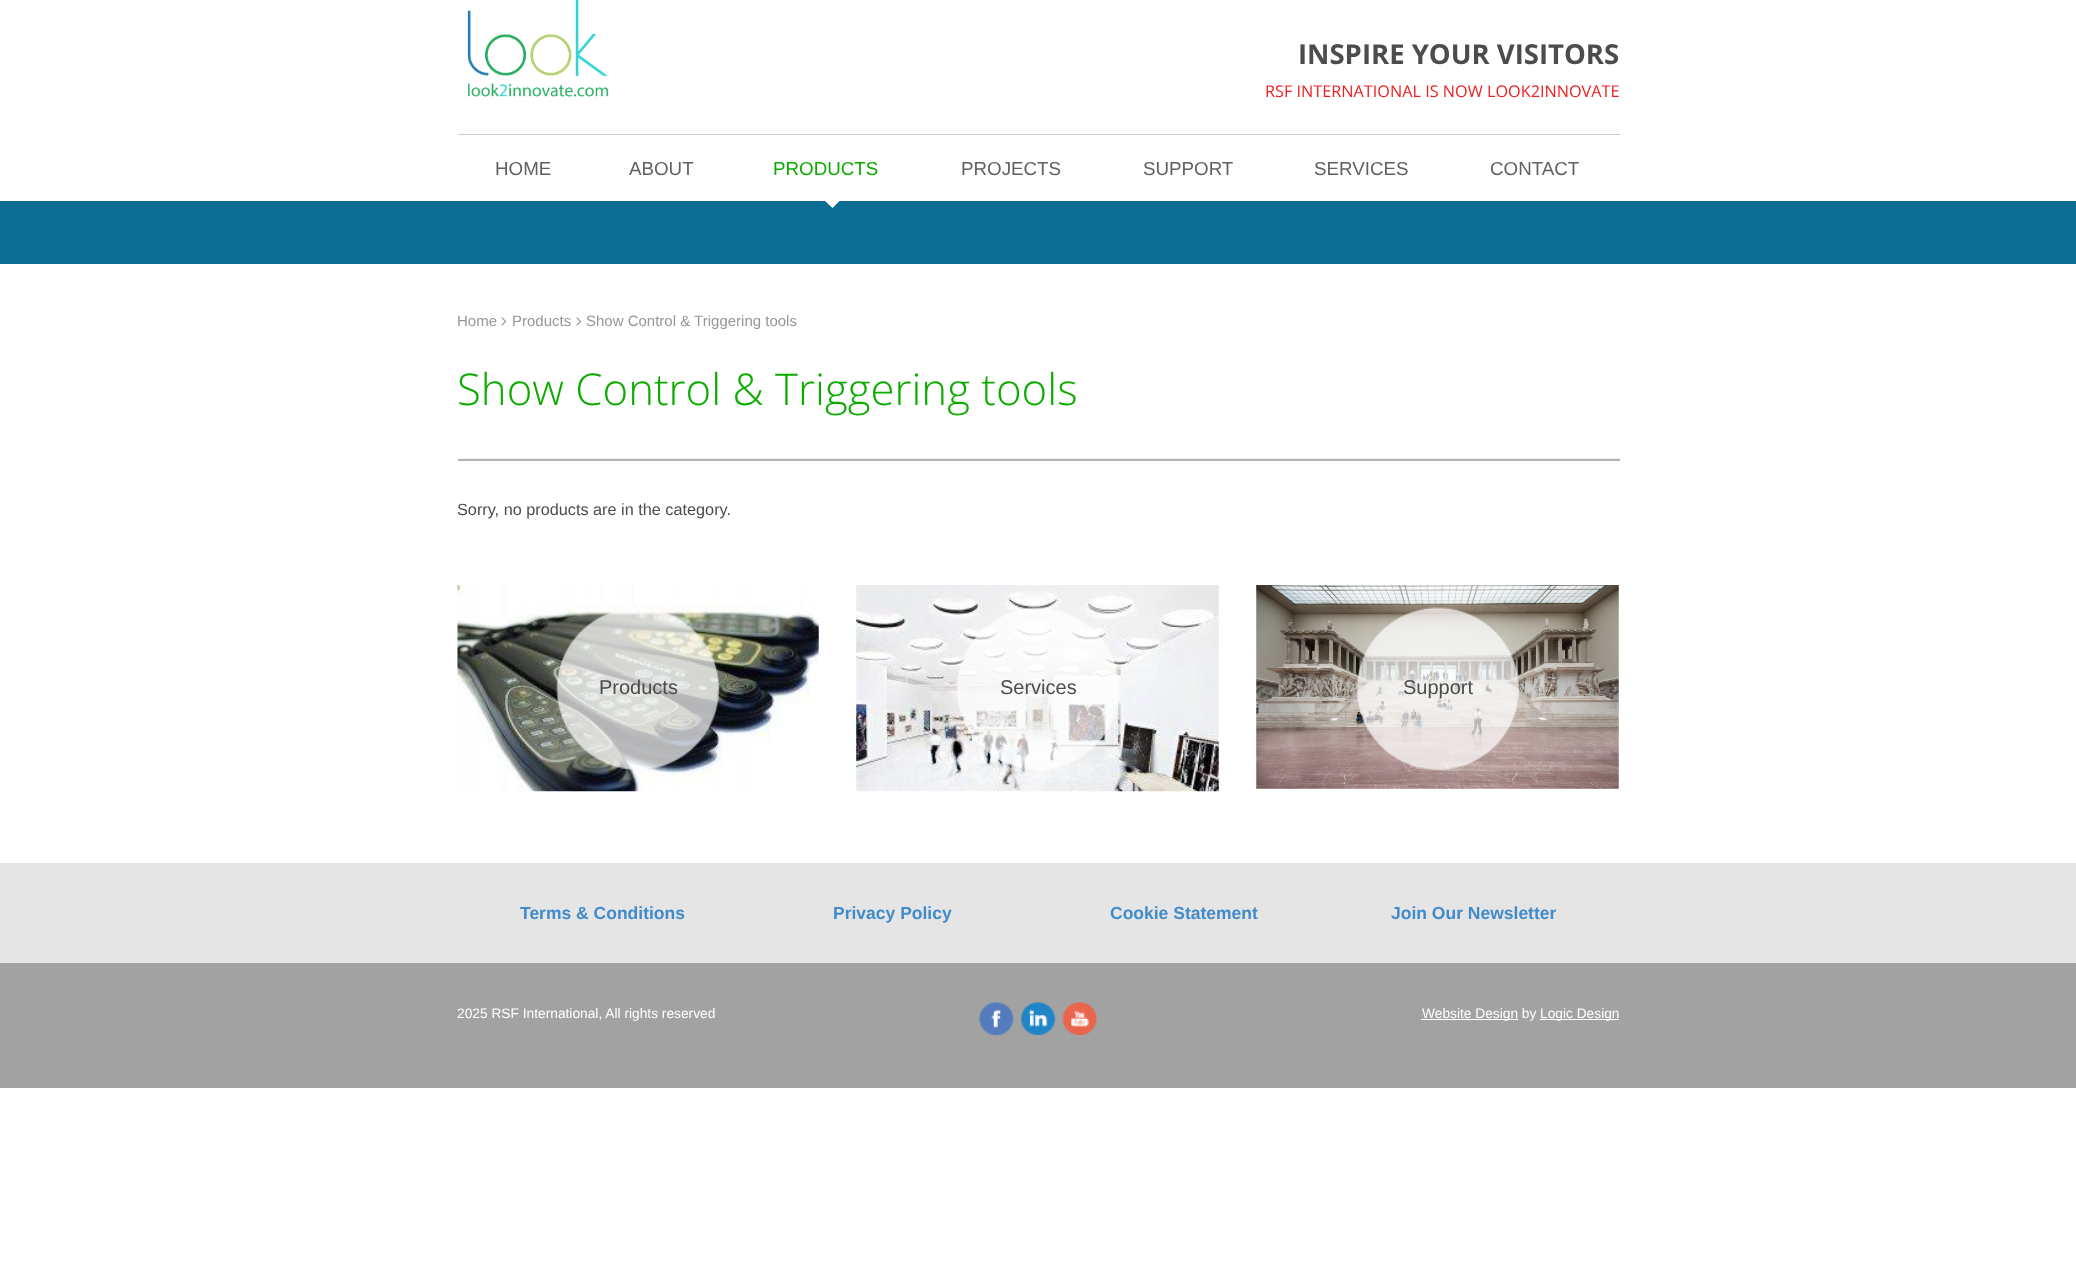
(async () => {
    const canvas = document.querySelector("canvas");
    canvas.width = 2076;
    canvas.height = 1287;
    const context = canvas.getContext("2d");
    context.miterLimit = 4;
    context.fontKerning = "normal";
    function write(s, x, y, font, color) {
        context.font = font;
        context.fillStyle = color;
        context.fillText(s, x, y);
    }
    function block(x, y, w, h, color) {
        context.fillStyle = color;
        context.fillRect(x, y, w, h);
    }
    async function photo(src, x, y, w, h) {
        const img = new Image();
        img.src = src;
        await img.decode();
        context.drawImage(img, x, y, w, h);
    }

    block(0, 0, 2076, 1287, "rgb(255, 255, 255)");
    await photo("media/1.png", 467, 0, 142, 97);
    write("INSPIRE YOUR VISITORS", 1298, 64, "bold 27.5px Open Sans", "rgb(76, 76, 76)");
    write("RSF INTERNATIONAL IS NOW LOOK2INNOVATE", 1265, 97, "16.25px Open Sans", "rgb(239, 30, 30)");
    block(458, 134, 1162, 1, "rgb(204, 204, 204)");
    write("HOME", 495, 175, "18.75px Liberation Sans", "rgb(97, 97, 97)");
    write("ABOUT", 629, 175, "18.75px Liberation Sans", "rgb(97, 97, 97)");
    write("PRODUCTS", 773, 175, "18.75px Liberation Sans", "rgb(13, 171, 0)");
    block(0, 201, 2076, 63, "rgb(13, 109, 147)");
    context.fillStyle = "rgb(255, 255, 255)";
    context.beginPath();
    context.moveTo(832.5, 190.5);
    context.lineTo(841, 199.5);
    context.lineTo(832.5, 208);
    context.lineTo(823.5, 199.5);
    context.closePath();
    context.fill();
    write("PROJECTS", 961, 175, "18.75px Liberation Sans", "rgb(97, 97, 97)");
    write("SUPPORT", 1143, 175, "18.75px Liberation Sans", "rgb(97, 97, 97)");
    write("SERVICES", 1314, 175, "18.75px Liberation Sans", "rgb(97, 97, 97)");
    write("CONTACT", 1490, 175, "18.75px Liberation Sans", "rgb(97, 97, 97)");
    write("Home", 457, 326, "15px Liberation Sans", "rgb(151, 151, 151)");
    await photo("media/2.png", 501, 317, 6, 9);
    write("Products", 512, 326, "15px Liberation Sans", "rgb(151, 151, 151)");
    await photo("media/2.png", 576, 317, 6, 9);
    write("Show Control & Triggering tools", 586, 326, "15px Liberation Sans", "rgb(151, 151, 151)");
    write("Show Control & Triggering tools", 457, 405, "300 43.75px Open Sans", "rgb(13, 171, 0)");
    block(458, 459, 1162, 2, "rgb(178, 178, 178)");
    block(458, 458, 1162, 1, "rgb(238, 238, 238)");
    write("Sorry, no products are in the category.", 457, 515, "16.25px Liberation Sans", "rgb(76, 76, 76)");
    await photo("media/3.png", 457, 585, 362, 207);
    await photo("media/4.png", 556, 610, 163, 160);
    write("Products", 599, 694, "20px Liberation Sans", "rgb(76, 76, 76)");
    await photo("media/5.png", 856, 585, 363, 207);
    await photo("media/6.png", 956, 607, 163, 163);
    write("Services", 1000, 694, "20px Liberation Sans", "rgb(76, 76, 76)");
    await photo("media/7.png", 1256, 585, 363, 204);
    await photo("media/8.png", 1356, 607, 163, 163);
    write("Support", 1403, 694, "20px Liberation Sans", "rgb(76, 76, 76)");
    block(0, 863, 2076, 100, "rgb(229, 229, 229)");
    write("Terms & Conditions", 520, 919, "bold 17.5px Liberation Sans", "rgb(66, 139, 202)");
    write("Privacy Policy", 833, 919, "bold 17.5px Liberation Sans", "rgb(66, 139, 202)");
    write("Cookie Statement", 1110, 919, "bold 17.5px Liberation Sans", "rgb(66, 139, 202)");
    write("Join Our Newsletter", 1391, 919, "bold 17.5px Liberation Sans", "rgb(66, 139, 202)");
    block(0, 963, 2076, 125, "rgb(162, 162, 162)");
    write("2025 RSF International, All rights reserved", 457, 1018, "13.75px Liberation Sans", "rgb(255, 255, 255)");
    await photo("media/9.png", 978, 1002, 36, 33);
    await photo("media/10.png", 1021, 1002, 35, 33);
    await photo("media/11.png", 1062, 1002, 35, 33);
    block(1421, 1019, 97, 1, "rgb(255, 255, 255)");
    write("Website Design by", 1422, 1018, "13.75px Liberation Sans", "rgb(255, 255, 255)");
    block(1540, 1019, 79, 1, "rgb(255, 255, 255)");
    write("Logic Design", 1540, 1018, "13.75px Liberation Sans", "rgb(255, 255, 255)");
})();
